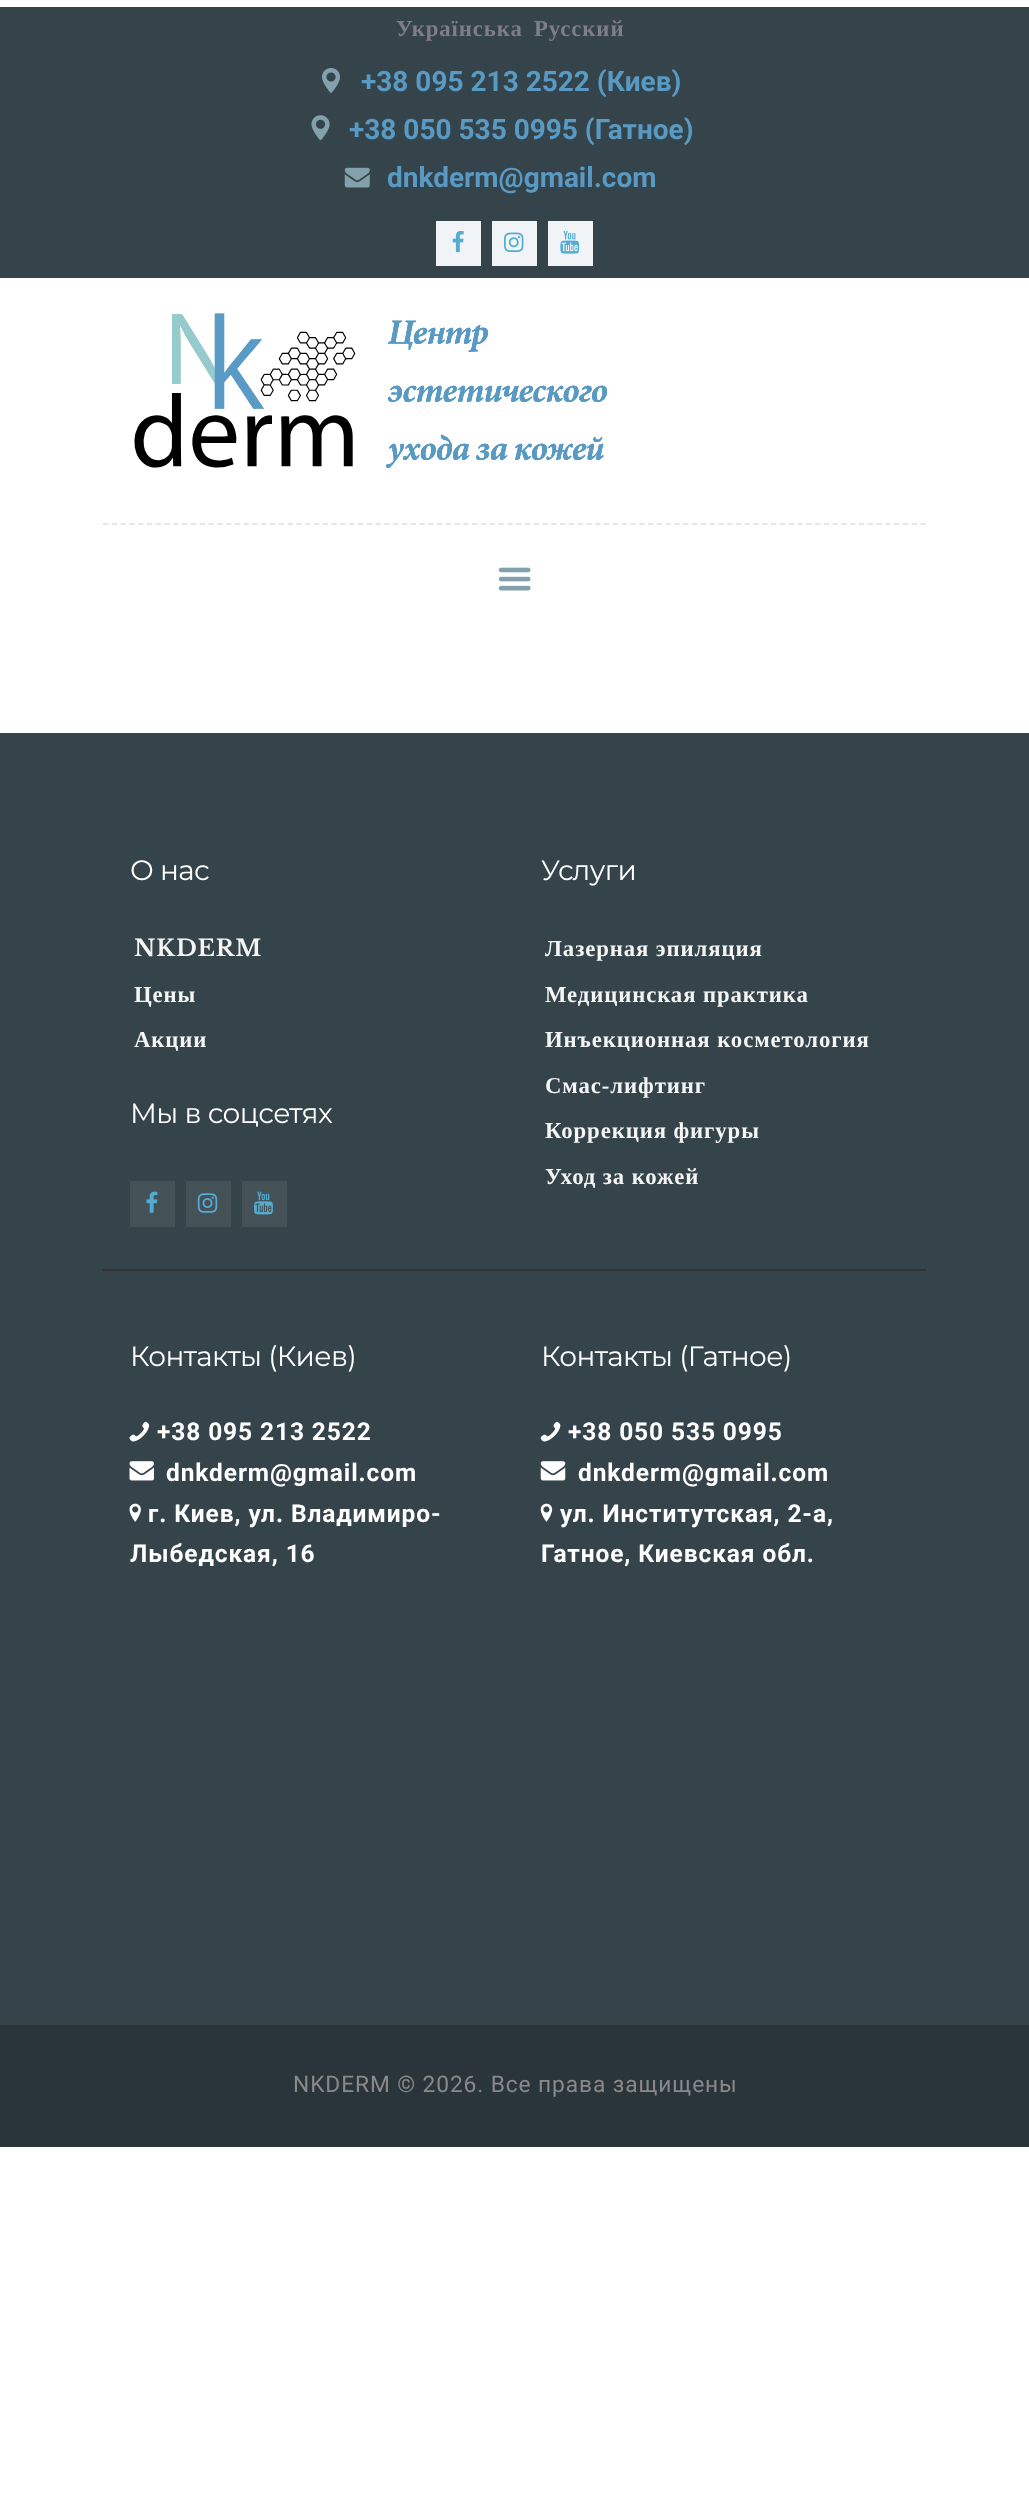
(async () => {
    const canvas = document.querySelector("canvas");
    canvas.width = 1029;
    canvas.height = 2518;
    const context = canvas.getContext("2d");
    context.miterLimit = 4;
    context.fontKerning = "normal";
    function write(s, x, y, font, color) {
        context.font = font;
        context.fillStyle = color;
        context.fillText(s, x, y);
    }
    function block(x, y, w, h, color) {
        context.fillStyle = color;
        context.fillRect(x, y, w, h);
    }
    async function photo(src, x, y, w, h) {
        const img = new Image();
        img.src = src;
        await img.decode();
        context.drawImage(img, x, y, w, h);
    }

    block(0, 0, 1029, 2518, "rgb(255, 255, 255)");
    block(0, 7, 1029, 271, "rgb(53, 68, 74)");
    context.letterSpacing = "0.9px";
    write("Українська", 396, 36, "bold 22.75px Liberation Serif", "rgb(126, 125, 137)");
    write("Русский", 534, 36, "bold 22.75px Liberation Serif", "rgb(126, 125, 137)");
    await photo("media/1.png", 322, 68, 18, 25);
    context.letterSpacing = "0px";
    write("+38 095 213 2522 (Киев)", 361, 91, "bold 28px Roboto", "rgb(88, 154, 195)");
    await photo("media/2.png", 311, 115, 19, 26);
    write("+38 050 535 0995 (Гатное)", 349, 139, "bold 28px Roboto", "rgb(88, 154, 195)");
    await photo("media/3.png", 344, 167, 26, 21);
    write("dnkderm@gmail.com", 387, 187, "bold 28px Roboto", "rgb(88, 154, 195)");
    block(436, 221, 45, 45, "rgb(240, 244, 246)");
    await photo("media/4.png", 452, 230, 12, 23);
    block(492, 221, 45, 45, "rgb(240, 244, 246)");
    await photo("media/5.png", 504, 232, 20, 21);
    block(548, 221, 45, 45, "rgb(240, 244, 246)");
    await photo("media/6.png", 560, 230, 20, 24);
    context.beginPath();
    context.moveTo(103, 524);
    context.lineTo(926, 524);
    context.strokeStyle = "rgb(229, 229, 229)";
    context.lineWidth = 1.8;
    context.setLineDash([5.25, 3.54]);
    context.stroke();
    await photo("media/7.png", 134, 313, 473, 155);
    await photo("media/8.png", 498, 567, 33, 24);
    block(0, 733, 1029, 1292, "rgb(53, 68, 74)");
    context.letterSpacing = "-0.6px";
    write("О нас", 130, 880, "28px Montserrat", "rgb(255, 255, 255)");
    context.letterSpacing = "0.9px";
    write("NKDERM", 134, 956, "bold 22.75px Libre Baskerville", "rgb(245, 245, 245)");
    write("Цены", 134, 1002, "bold 22.75px Liberation Serif", "rgb(245, 245, 245)");
    write("Акции", 134, 1047, "bold 22.75px Liberation Serif", "rgb(245, 245, 245)");
    context.letterSpacing = "-0.6px";
    write("Мы в соцсетях", 130, 1123, "28px Montserrat", "rgb(255, 255, 255)");
    block(130, 1181, 45, 46, "rgb(68, 82, 88)");
    await photo("media/9.png", 146, 1191, 12, 22);
    block(186, 1181, 45, 46, "rgb(68, 82, 88)");
    await photo("media/10.png", 197, 1193, 21, 20);
    block(242, 1181, 45, 46, "rgb(68, 82, 88)");
    await photo("media/11.png", 254, 1191, 19, 24);
    write("Услуги", 541, 880, "28px Montserrat", "rgb(255, 255, 255)");
    context.letterSpacing = "0.9px";
    write("Лазерная эпиляция", 545, 956, "bold 22.75px Liberation Serif", "rgb(245, 245, 245)");
    write("Медицинская практика", 545, 1002, "bold 22.75px Liberation Serif", "rgb(245, 245, 245)");
    write("Инъекционная косметология", 545, 1047, "bold 22.75px Liberation Serif", "rgb(245, 245, 245)");
    write("Смас-лифтинг", 545, 1093, "bold 22.75px Liberation Serif", "rgb(245, 245, 245)");
    write("Коррекция фигуры", 545, 1138, "bold 22.75px Liberation Serif", "rgb(245, 245, 245)");
    write("Уход за кожей", 545, 1184, "bold 22.75px Liberation Serif", "rgb(245, 245, 245)");
    block(103, 1269, 823, 2, "rgb(49, 49, 49)");
    context.letterSpacing = "-0.6px";
    write("Контакты (Киев)", 130, 1366, "28px Montserrat", "rgb(255, 255, 255)");
    await photo("media/12.png", 129, 1421, 21, 21);
    context.letterSpacing = "0.9px";
    write("+38 095 213 2522", 157, 1440, "bold 24.5px Roboto", "rgb(255, 255, 255)");
    await photo("media/13.png", 129, 1461, 25, 20);
    write("dnkderm@gmail.com", 166, 1481, "bold 24.5px Roboto", "rgb(255, 255, 255)");
    await photo("media/14.png", 129, 1503, 12, 19);
    write("г. Киев, ул. Владимиро-", 148, 1522, "bold 24.5px Roboto", "rgb(255, 255, 255)");
    write("Лыбедская, 16", 130, 1562, "bold 24.5px Roboto", "rgb(255, 255, 255)");
    context.letterSpacing = "-0.6px";
    write("Контакты (Гатное)", 541, 1366, "28px Montserrat", "rgb(255, 255, 255)");
    await photo("media/15.png", 540, 1421, 21, 21);
    context.letterSpacing = "0.9px";
    write("+38 050 535 0995", 568, 1440, "bold 24.5px Roboto", "rgb(255, 255, 255)");
    await photo("media/16.png", 540, 1461, 26, 20);
    write("dnkderm@gmail.com", 578, 1481, "bold 24.5px Roboto", "rgb(255, 255, 255)");
    await photo("media/17.png", 540, 1503, 13, 19);
    write("ул. Институтская, 2-а,", 560, 1522, "bold 24.5px Roboto", "rgb(255, 255, 255)");
    write("Гатное, Киевская обл.", 541, 1562, "bold 24.5px Roboto", "rgb(255, 255, 255)");
    block(0, 2025, 1029, 122, "rgb(41, 53, 58)");
    write("NKDERM © 2026. Все права защищены", 293, 2092, "22.75px Roboto", "rgb(138, 137, 138)");
})();
